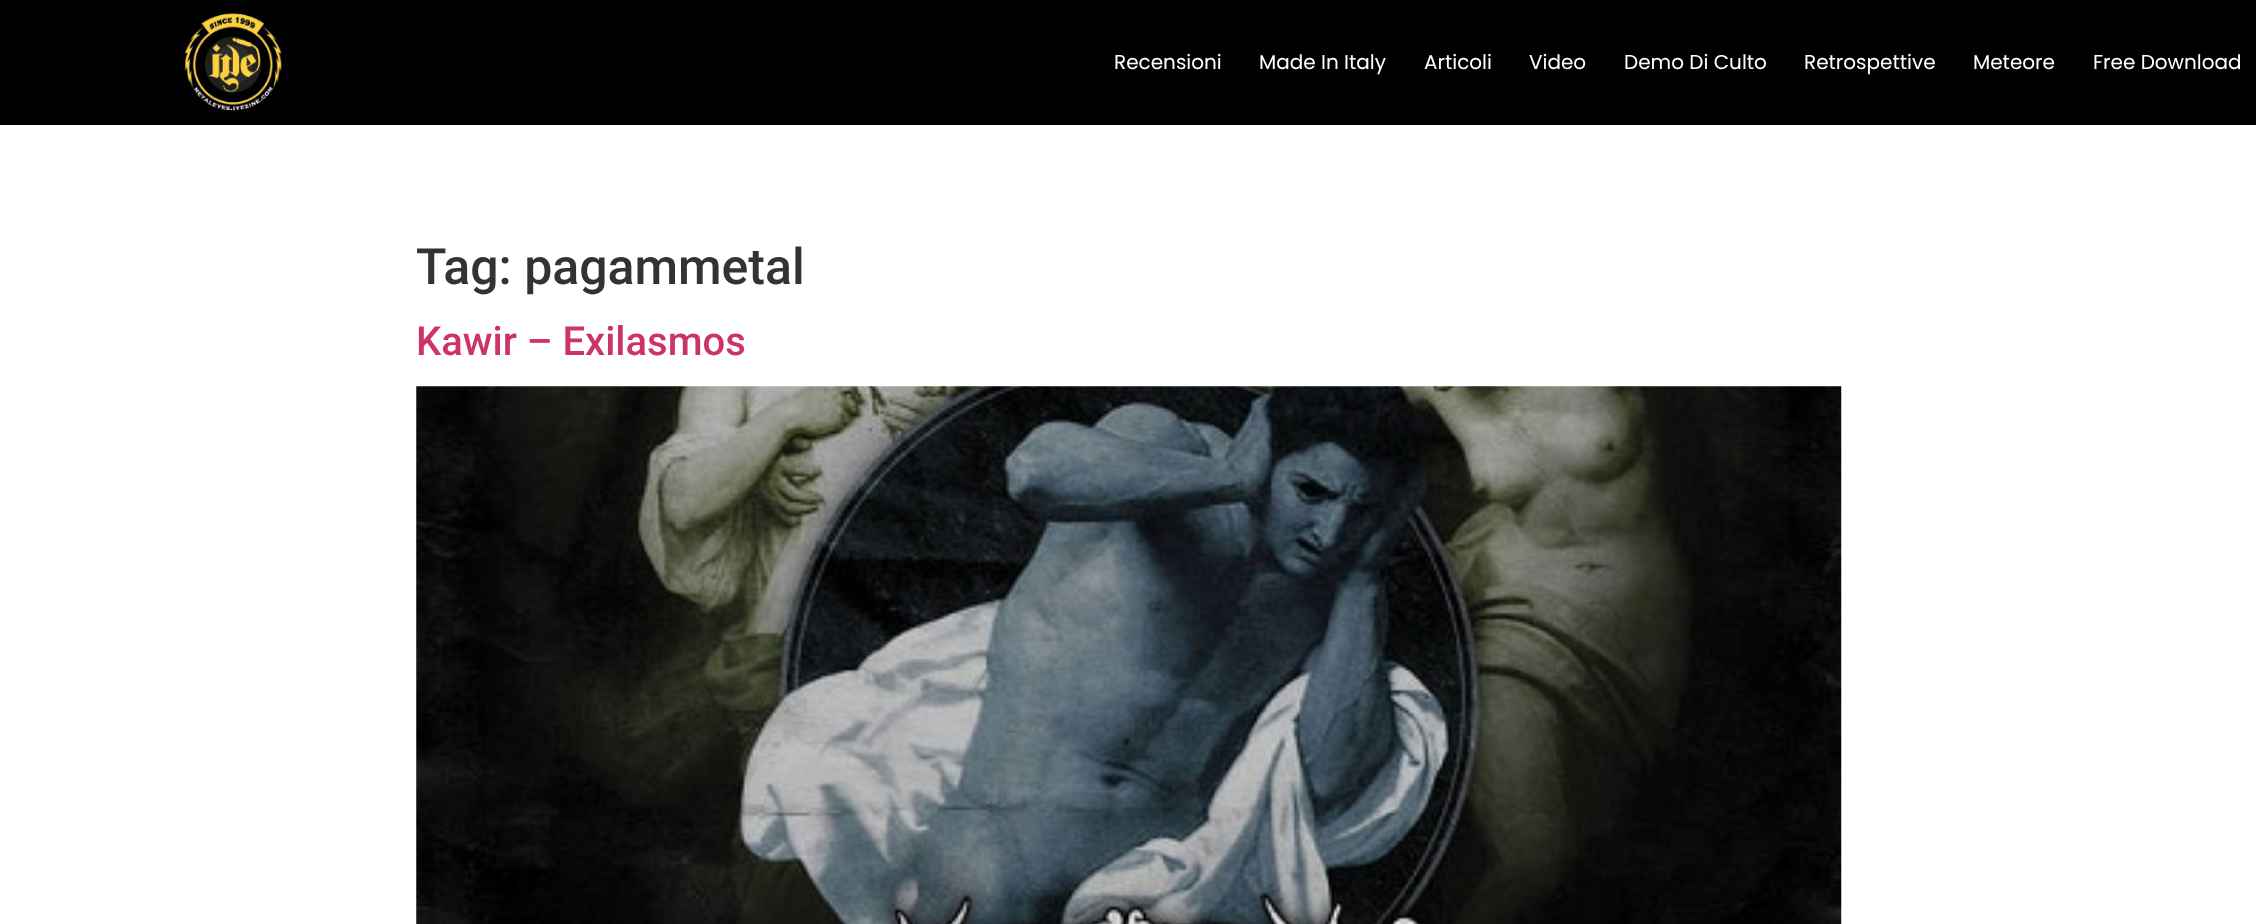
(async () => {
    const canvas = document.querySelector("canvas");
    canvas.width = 2256;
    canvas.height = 924;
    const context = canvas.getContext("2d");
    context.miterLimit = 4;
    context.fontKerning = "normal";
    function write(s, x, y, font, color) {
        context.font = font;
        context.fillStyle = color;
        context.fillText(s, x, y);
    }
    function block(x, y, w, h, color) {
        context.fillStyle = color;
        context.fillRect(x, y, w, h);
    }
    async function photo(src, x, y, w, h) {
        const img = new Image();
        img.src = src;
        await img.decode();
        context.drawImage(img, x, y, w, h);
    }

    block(0, 0, 2256, 924, "rgb(255, 255, 255)");
    block(0, 0, 2256, 125, "rgb(0, 0, 0)");
    await photo("media/1.png", 180, 9, 108, 102);
    write("Recensioni", 1114, 69, "20px Poppins", "rgb(255, 255, 255)");
    write("Made In Italy", 1259, 69, "20px Poppins", "rgb(255, 255, 255)");
    write("Articoli", 1424, 69, "20px Poppins", "rgb(255, 255, 255)");
    write("Video", 1529, 69, "20px Poppins", "rgb(255, 255, 255)");
    write("Demo Di Culto", 1624, 69, "20px Poppins", "rgb(255, 255, 255)");
    write("Retrospettive", 1804, 69, "20px Poppins", "rgb(255, 255, 255)");
    write("Meteore", 1973, 69, "20px Poppins", "rgb(255, 255, 255)");
    write("Free Download", 2093, 69, "20px Poppins", "rgb(255, 255, 255)");
    write("Tag: pagammetal", 416, 284, "500 50px Roboto", "rgb(51, 51, 51)");
    write("Kawir – Exilasmos", 416, 355, "500 40px Roboto", "rgb(204, 51, 102)");
    await photo("media/2.png", 416, 386, 1426, 538);
})();
